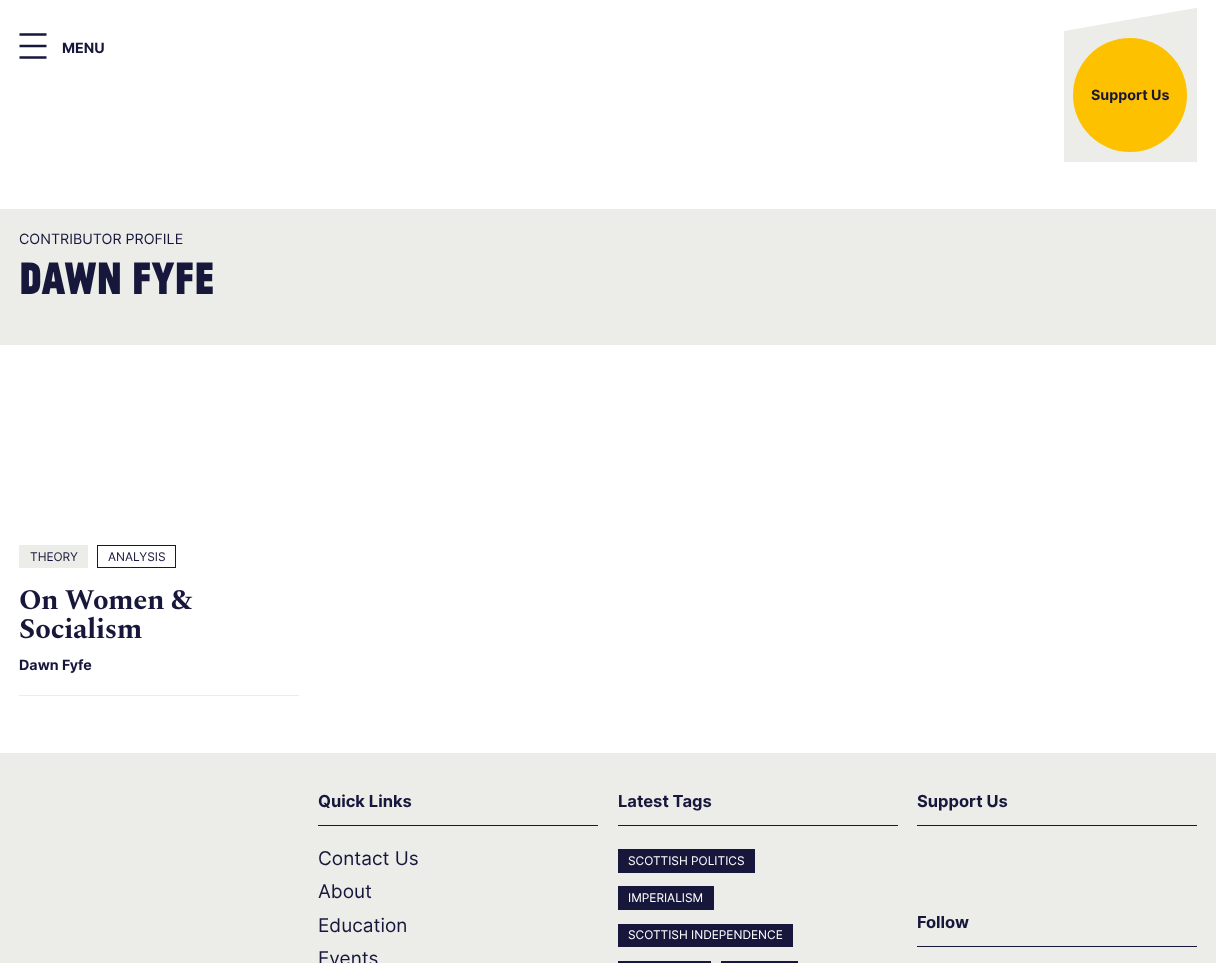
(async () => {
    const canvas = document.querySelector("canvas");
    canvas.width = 1216;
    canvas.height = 963;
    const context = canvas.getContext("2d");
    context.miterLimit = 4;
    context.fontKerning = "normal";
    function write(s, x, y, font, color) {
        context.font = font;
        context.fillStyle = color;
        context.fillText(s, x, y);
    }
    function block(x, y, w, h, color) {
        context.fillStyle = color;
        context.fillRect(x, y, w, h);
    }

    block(0, 0, 1216, 963, "rgb(255, 255, 255)");
    context.beginPath();
    context.moveTo(19.5, 34.5);
    context.lineTo(46.5, 34.5);
    context.moveTo(19.5, 46);
    context.lineTo(46.5, 46);
    context.moveTo(19.5, 57.5);
    context.lineTo(46.5, 57.5);
    context.strokeStyle = "rgb(23, 23, 60)";
    context.lineWidth = 2.6;
    context.stroke();
    write("MENU", 62, 53, "bold 14.25px Inter", "rgb(23, 23, 60)");
    block(1064, 7, 133, 155, "rgb(236, 237, 232)");
    context.save();
    context.beginPath();
    context.rect(1064, 0, 133, 162);
    context.clip();
    context.fillStyle = "rgb(255, 255, 255)";
    context.beginPath();
    context.moveTo(1043, -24);
    context.lineTo(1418, -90);
    context.lineTo(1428, -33);
    context.lineTo(1053, 33);
    context.closePath();
    context.fill();
    context.restore();
    context.fillStyle = "rgb(253, 193, 0)";
    context.beginPath();
    context.arc(1130, 95, 57, 0, Math.PI * 2);
    context.fill();
    write("Support Us", 1091, 100, "bold 14.25px Inter", "rgb(23, 23, 60)");
    block(0, 209, 1216, 136, "rgb(236, 237, 232)");
    write("CONTRIBUTOR PROFILE", 19, 244, "14.25px Inter", "rgb(23, 23, 60)");
    write("Dawn Fyfe", 19, 294, "100 47.5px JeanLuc", "rgb(23, 23, 60)");
    block(19, 695, 280, 1, "rgb(236, 237, 232)");
    block(19, 545, 69, 23, "rgb(236, 237, 232)");
    write("THEORY", 30, 561, "11.9px Inter", "rgb(23, 23, 60)");
    context.lineWidth = 1;
    context.strokeRect(97.5, 545.5, 78, 22);
    write("ANALYSIS", 108, 561, "11.9px Inter", "rgb(23, 23, 60)");
    context.letterSpacing = "-0.5px";
    write("On Women &", 19, 609, "bold 28.5px Spectral", "rgb(23, 23, 60)");
    write("Socialism", 19, 638, "bold 28.5px Spectral", "rgb(23, 23, 60)");
    context.letterSpacing = "0px";
    write("Dawn Fyfe", 19, 670, "bold 14.25px Inter", "rgb(23, 23, 60)");
    block(0, 753, 1216, 210, "rgb(236, 237, 232)");
    block(318, 825, 280, 1, "rgb(23, 23, 60)");
    write("Quick Links", 318, 807, "bold 16.5px Inter", "rgb(23, 23, 60)");
    write("Contact Us", 318, 865, "19px Inter", "rgb(23, 23, 60)");
    write("About", 318, 898, "19px Inter", "rgb(23, 23, 60)");
    write("Education", 318, 932, "19px Inter", "rgb(23, 23, 60)");
    write("Events", 318, 965, "19px Inter", "rgb(23, 23, 60)");
    block(618, 825, 280, 1, "rgb(23, 23, 60)");
    write("Latest Tags", 618, 807, "bold 16.5px Inter", "rgb(23, 23, 60)");
    block(618, 849, 137, 24, "rgb(23, 23, 60)");
    write("SCOTTISH POLITICS", 628, 865, "11.9px Inter", "rgb(255, 255, 255)");
    block(618, 886, 96, 24, "rgb(23, 23, 60)");
    write("IMPERIALISM", 628, 902, "11.9px Inter", "rgb(255, 255, 255)");
    block(618, 924, 175, 23, "rgb(23, 23, 60)");
    write("SCOTTISH INDEPENDENCE", 628, 939, "11.9px Inter", "rgb(255, 255, 255)");
    block(618, 961, 93, 2, "rgb(23, 23, 60)");
    block(721, 961, 77, 2, "rgb(23, 23, 60)");
    block(917, 825, 280, 1, "rgb(23, 23, 60)");
    write("Support Us", 917, 807, "bold 16.5px Inter", "rgb(23, 23, 60)");
    block(917, 946, 280, 1, "rgb(23, 23, 60)");
    write("Follow", 917, 928, "bold 16.5px Inter", "rgb(23, 23, 60)");
})();
